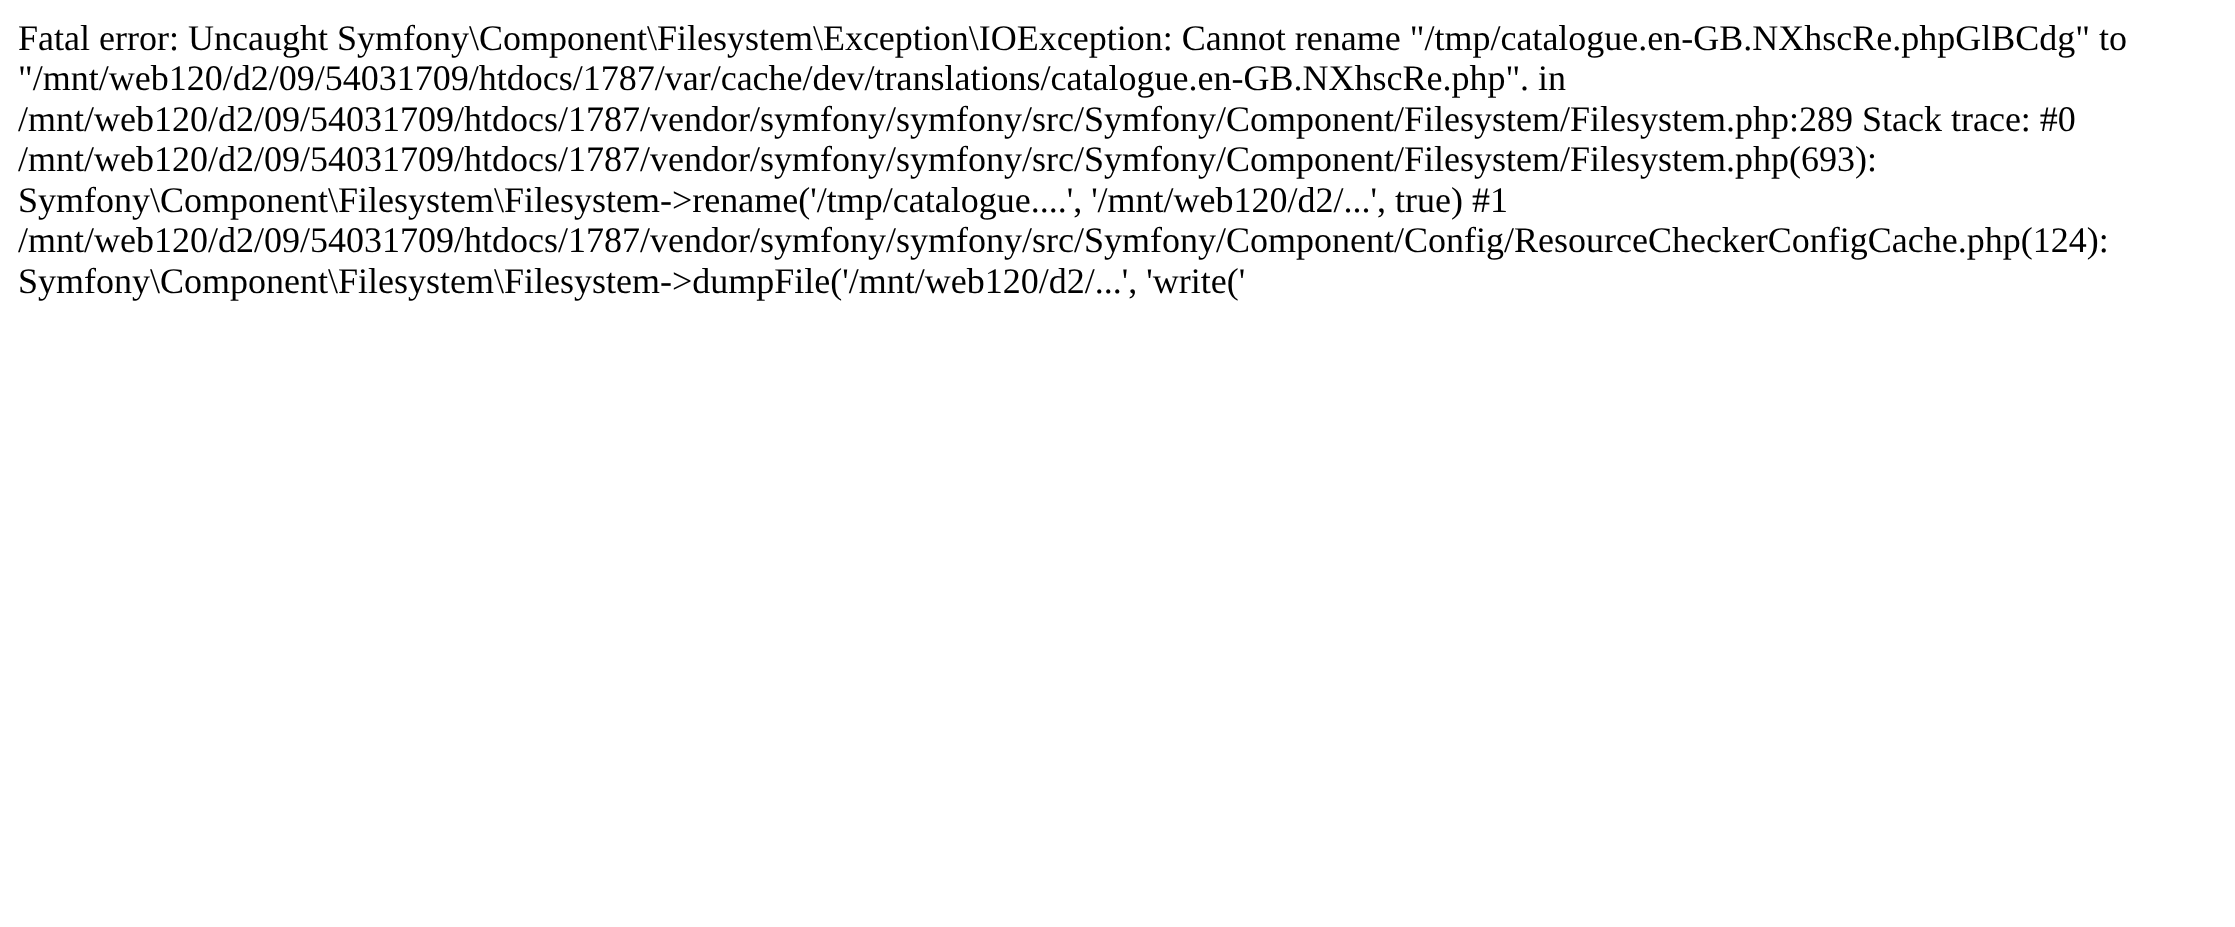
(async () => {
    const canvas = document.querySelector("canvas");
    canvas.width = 2235;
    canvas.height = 927;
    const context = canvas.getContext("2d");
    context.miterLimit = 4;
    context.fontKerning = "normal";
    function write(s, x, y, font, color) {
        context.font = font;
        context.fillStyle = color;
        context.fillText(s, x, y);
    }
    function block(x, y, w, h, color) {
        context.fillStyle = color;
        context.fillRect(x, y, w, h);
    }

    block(0, 0, 2235, 927, "rgb(255, 255, 255)");
    write("Fatal error: Uncaught Symfony\\Component\\Filesystem\\Exception\\IOException: Cannot rename \"/tmp/catalogue.en-GB.NXhscRe.phpGlBCdg\" to", 18, 50, "36px Liberation Serif", "rgb(0, 0, 0)");
    write("\"/mnt/web120/d2/09/54031709/htdocs/1787/var/cache/dev/translations/catalogue.en-GB.NXhscRe.php\". in", 18, 90, "36px Liberation Serif", "rgb(0, 0, 0)");
    write("/mnt/web120/d2/09/54031709/htdocs/1787/vendor/symfony/symfony/src/Symfony/Component/Filesystem/Filesystem.php:289 Stack trace: #0", 18, 131, "36px Liberation Serif", "rgb(0, 0, 0)");
    write("/mnt/web120/d2/09/54031709/htdocs/1787/vendor/symfony/symfony/src/Symfony/Component/Filesystem/Filesystem.php(693):", 18, 171, "36px Liberation Serif", "rgb(0, 0, 0)");
    write("Symfony\\Component\\Filesystem\\Filesystem->rename('/tmp/catalogue....', '/mnt/web120/d2/...', true) #1", 18, 212, "36px Liberation Serif", "rgb(0, 0, 0)");
    write("/mnt/web120/d2/09/54031709/htdocs/1787/vendor/symfony/symfony/src/Symfony/Component/Config/ResourceCheckerConfigCache.php(124):", 18, 252, "36px Liberation Serif", "rgb(0, 0, 0)");
    write("Symfony\\Component\\Filesystem\\Filesystem->dumpFile('/mnt/web120/d2/...', 'write('", 18, 293, "36px Liberation Serif", "rgb(0, 0, 0)");
})();
